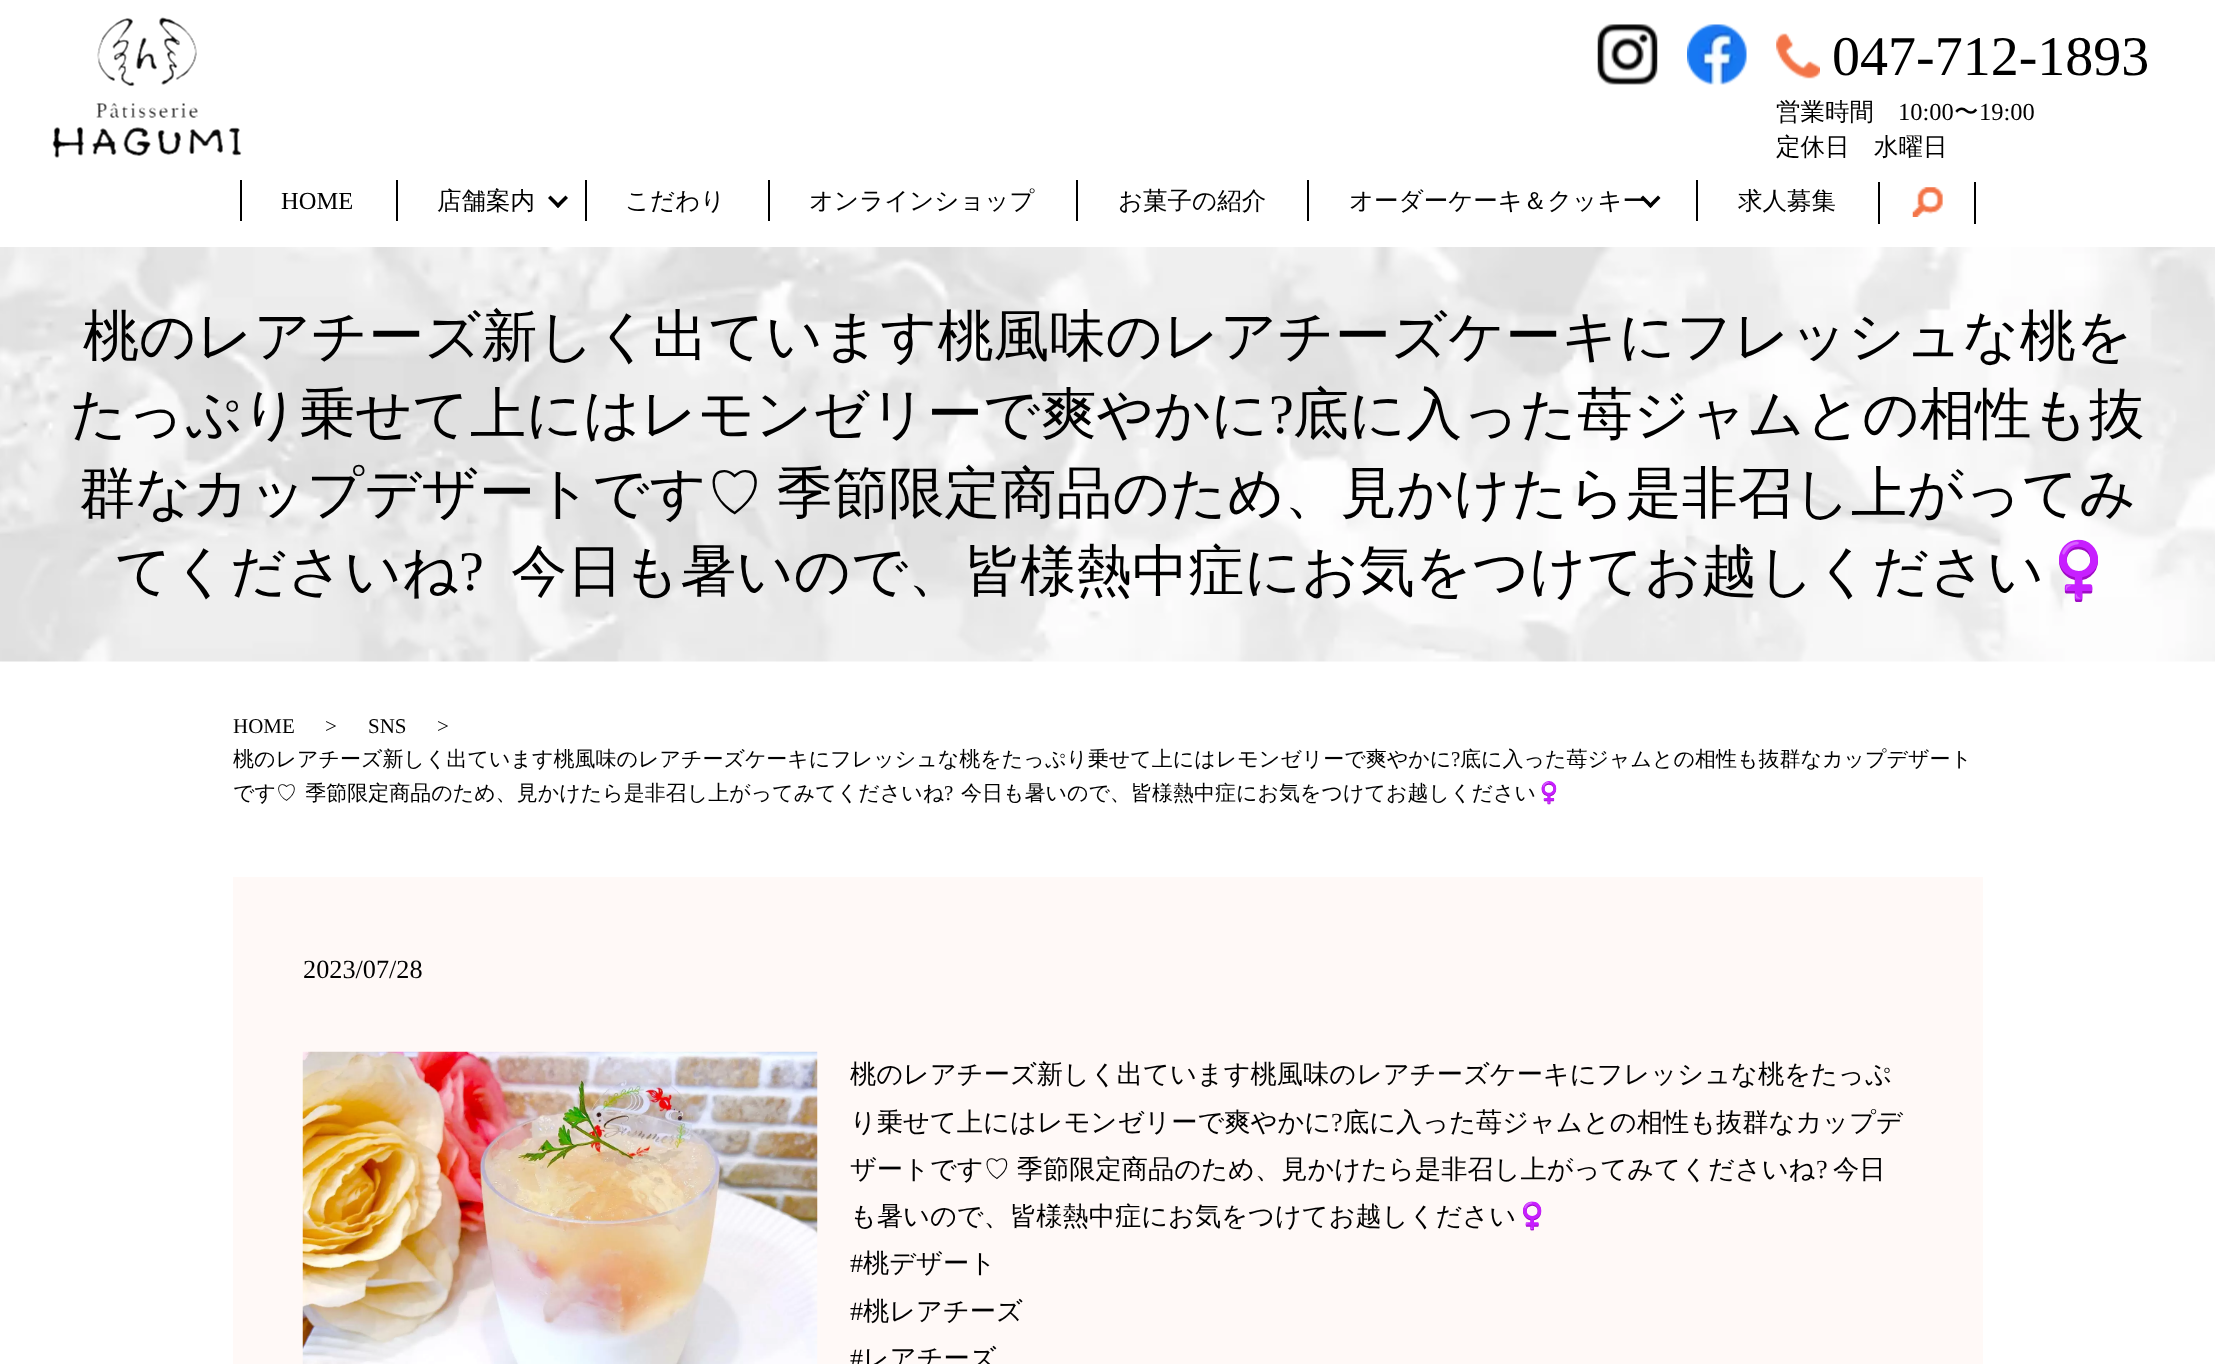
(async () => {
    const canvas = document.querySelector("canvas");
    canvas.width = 2215;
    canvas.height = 1364;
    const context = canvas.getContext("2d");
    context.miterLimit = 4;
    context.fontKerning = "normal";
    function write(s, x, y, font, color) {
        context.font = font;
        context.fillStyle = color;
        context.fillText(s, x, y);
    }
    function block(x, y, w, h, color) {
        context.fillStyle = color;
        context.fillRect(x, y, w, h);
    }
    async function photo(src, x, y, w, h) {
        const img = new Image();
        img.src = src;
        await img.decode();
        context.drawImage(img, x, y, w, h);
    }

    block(0, 0, 2215, 1364, "rgb(255, 255, 255)");
    await photo("media/1.png", 52, 17, 190, 141);
    await photo("media/2.png", 1597, 24, 61, 61);
    await photo("media/3.png", 1687, 24, 60, 61);
    await photo("media/4.png", 1776, 33, 44, 46);
    write("047-712-1893", 1832, 75, "56px Liberation Serif", "rgb(0, 0, 0)");
    write("営業時間", 1776, 120, "500 24.5px WenQuanYi Zen Hei", "rgb(0, 0, 0)");
    write("10:00", 1898, 120, "24.5px Liberation Serif", "rgb(0, 0, 0)");
    write("〜", 1954, 120, "500 24.5px WenQuanYi Zen Hei", "rgb(0, 0, 0)");
    write("19:00", 1979, 120, "24.5px Liberation Serif", "rgb(0, 0, 0)");
    write("定休日　水曜日", 1776, 155, "500 24.5px WenQuanYi Zen Hei", "rgb(0, 0, 0)");
    block(240, 180, 2, 41, "rgb(0, 0, 0)");
    write("HOME", 281, 209, "24.5px Liberation Serif", "rgb(0, 0, 0)");
    block(396, 180, 2, 41, "rgb(0, 0, 0)");
    write("店舗案内", 437, 209, "500 24.5px WenQuanYi Zen Hei", "rgb(0, 0, 0)");
    context.beginPath();
    context.moveTo(568, 198);
    context.lineTo(558, 208);
    context.lineTo(555.5, 205.5);
    context.lineTo(565.5, 195.5);
    context.closePath();
    context.fill();
    context.beginPath();
    context.moveTo(560.5, 205.5);
    context.lineTo(558, 208);
    context.lineTo(548, 198);
    context.lineTo(550.5, 195.5);
    context.closePath();
    context.fill();
    block(585, 180, 2, 41, "rgb(0, 0, 0)");
    write("こだわり", 625, 209, "500 24.5px WenQuanYi Zen Hei", "rgb(0, 0, 0)");
    block(768, 180, 2, 41, "rgb(0, 0, 0)");
    write("オンラインショップ", 809, 209, "500 24.5px WenQuanYi Zen Hei", "rgb(0, 0, 0)");
    block(1076, 180, 2, 41, "rgb(0, 0, 0)");
    write("お菓子の紹介", 1118, 209, "500 24.5px WenQuanYi Zen Hei", "rgb(0, 0, 0)");
    block(1307, 180, 2, 41, "rgb(0, 0, 0)");
    write("オーダーケーキ＆クッキー", 1349, 209, "500 24.5px WenQuanYi Zen Hei", "rgb(0, 0, 0)");
    context.beginPath();
    context.moveTo(1660.5, 198);
    context.lineTo(1650.5, 208);
    context.lineTo(1648, 205.5);
    context.lineTo(1658, 195.5);
    context.closePath();
    context.fill();
    context.beginPath();
    context.moveTo(1653, 205.5);
    context.lineTo(1650.5, 208);
    context.lineTo(1640.5, 198);
    context.lineTo(1643, 195.5);
    context.closePath();
    context.fill();
    block(1696, 180, 2, 41, "rgb(0, 0, 0)");
    write("求人募集", 1738, 209, "500 24.5px WenQuanYi Zen Hei", "rgb(0, 0, 0)");
    await photo("media/5.png", 1912, 187, 31, 30);
    block(1878, 182, 2, 42, "rgb(0, 0, 0)");
    block(1974, 182, 2, 42, "rgb(0, 0, 0)");
    await photo("media/6.png", 0, 247, 2215, 415);
    write("桃のレアチーズ新しく出ています桃風味のレアチーズケーキにフレッシュな桃を", 83, 355, "500 56px WenQuanYi Zen Hei", "rgb(0, 0, 0)");
    write("たっぷり乗せて上にはレモンゼリーで爽やかに", 70, 433, "500 56px WenQuanYi Zen Hei", "rgb(0, 0, 0)");
    write("?", 1269, 433, "56px Liberation Serif", "rgb(0, 0, 0)");
    write("底に入った苺ジャムとの相性も抜", 1293, 433, "500 56px WenQuanYi Zen Hei", "rgb(0, 0, 0)");
    context.wordSpacing = "-3px";
    write("群なカップデザートです♡ 季節限定商品のため、見かけたら是非召し上がってみ", 79, 512, "500 56px WenQuanYi Zen Hei", "rgb(0, 0, 0)");
    context.wordSpacing = "0px";
    write("てくださいね", 115, 590, "500 56px WenQuanYi Zen Hei", "rgb(0, 0, 0)");
    write("?", 459, 590, "56px Liberation Serif", "rgb(0, 0, 0)");
    write("今日も暑いので、皆様熱中症にお気をつけてお越しください‍♀️", 511, 590, "500 56px WenQuanYi Zen Hei", "rgb(0, 0, 0)");
    write("HOME", 233, 733, "21px Liberation Serif", "rgb(0, 0, 0)");
    write(">", 325, 733, "21px Liberation Serif", "rgb(0, 0, 0)");
    write("SNS", 368, 733, "21px Liberation Serif", "rgb(0, 0, 0)");
    write(">", 437, 733, "21px Liberation Serif", "rgb(0, 0, 0)");
    write("桃のレアチーズ新しく出ています桃風味のレアチーズケーキにフレッシュな桃をたっぷり乗せて上にはレモンゼリーで爽やかに", 233, 766, "500 21px WenQuanYi Zen Hei", "rgb(0, 0, 0)");
    write("?", 1451, 766, "21px Liberation Serif", "rgb(0, 0, 0)");
    write("底に入った苺ジャムとの相性も抜群なカップデザート", 1460, 766, "500 21px WenQuanYi Zen Hei", "rgb(0, 0, 0)");
    context.wordSpacing = "2px";
    write("です♡ 季節限定商品のため、見かけたら是非召し上がってみてくださいね", 233, 800, "500 21px WenQuanYi Zen Hei", "rgb(0, 0, 0)");
    context.wordSpacing = "0px";
    write("?", 944, 800, "21px Liberation Serif", "rgb(0, 0, 0)");
    write("今日も暑いので、皆様熱中症にお気をつけてお越しください‍♀️", 961, 800, "500 21px WenQuanYi Zen Hei", "rgb(0, 0, 0)");
    block(233, 877, 1750, 487, "rgb(255, 249, 247)");
    write("2023/07/28", 303, 978, "26.25px Liberation Serif", "rgb(0, 0, 0)");
    await photo("media/7.png", 302, 1051, 516, 313);
    write("桃のレアチーズ新しく出ています桃風味のレアチーズケーキにフレッシュな桃をたっぷ", 850, 1083, "500 26.25px WenQuanYi Zen Hei", "rgb(0, 0, 0)");
    write("り乗せて上にはレモンゼリーで爽やかに", 850, 1131, "500 26.25px WenQuanYi Zen Hei", "rgb(0, 0, 0)");
    write("?", 1331, 1131, "26.25px Liberation Serif", "rgb(0, 0, 0)");
    write("底に入った苺ジャムとの相性も抜群なカップデ", 1343, 1131, "500 26.25px WenQuanYi Zen Hei", "rgb(0, 0, 0)");
    context.wordSpacing = "-1px";
    write("ザートです♡ 季節限定商品のため、見かけたら是非召し上がってみてくださいね", 850, 1178, "500 26.25px WenQuanYi Zen Hei", "rgb(0, 0, 0)");
    context.wordSpacing = "0px";
    write("?", 1816, 1178, "26.25px Liberation Serif", "rgb(0, 0, 0)");
    write("今日", 1833, 1178, "500 26.25px WenQuanYi Zen Hei", "rgb(0, 0, 0)");
    write("も暑いので、皆様熱中症にお気をつけてお越しください‍♀️", 850, 1225, "500 26.25px WenQuanYi Zen Hei", "rgb(0, 0, 0)");
    write("#", 850, 1272, "26.25px Liberation Serif", "rgb(0, 0, 0)");
    write("桃デザート", 863, 1272, "500 26.25px WenQuanYi Zen Hei", "rgb(0, 0, 0)");
    write("#", 850, 1320, "26.25px Liberation Serif", "rgb(0, 0, 0)");
    write("桃レアチーズ", 863, 1320, "500 26.25px WenQuanYi Zen Hei", "rgb(0, 0, 0)");
    write("#", 850, 1367, "26.25px Liberation Serif", "rgb(0, 0, 0)");
    write("レアチーズ", 863, 1367, "500 26.25px WenQuanYi Zen Hei", "rgb(0, 0, 0)");
})();
